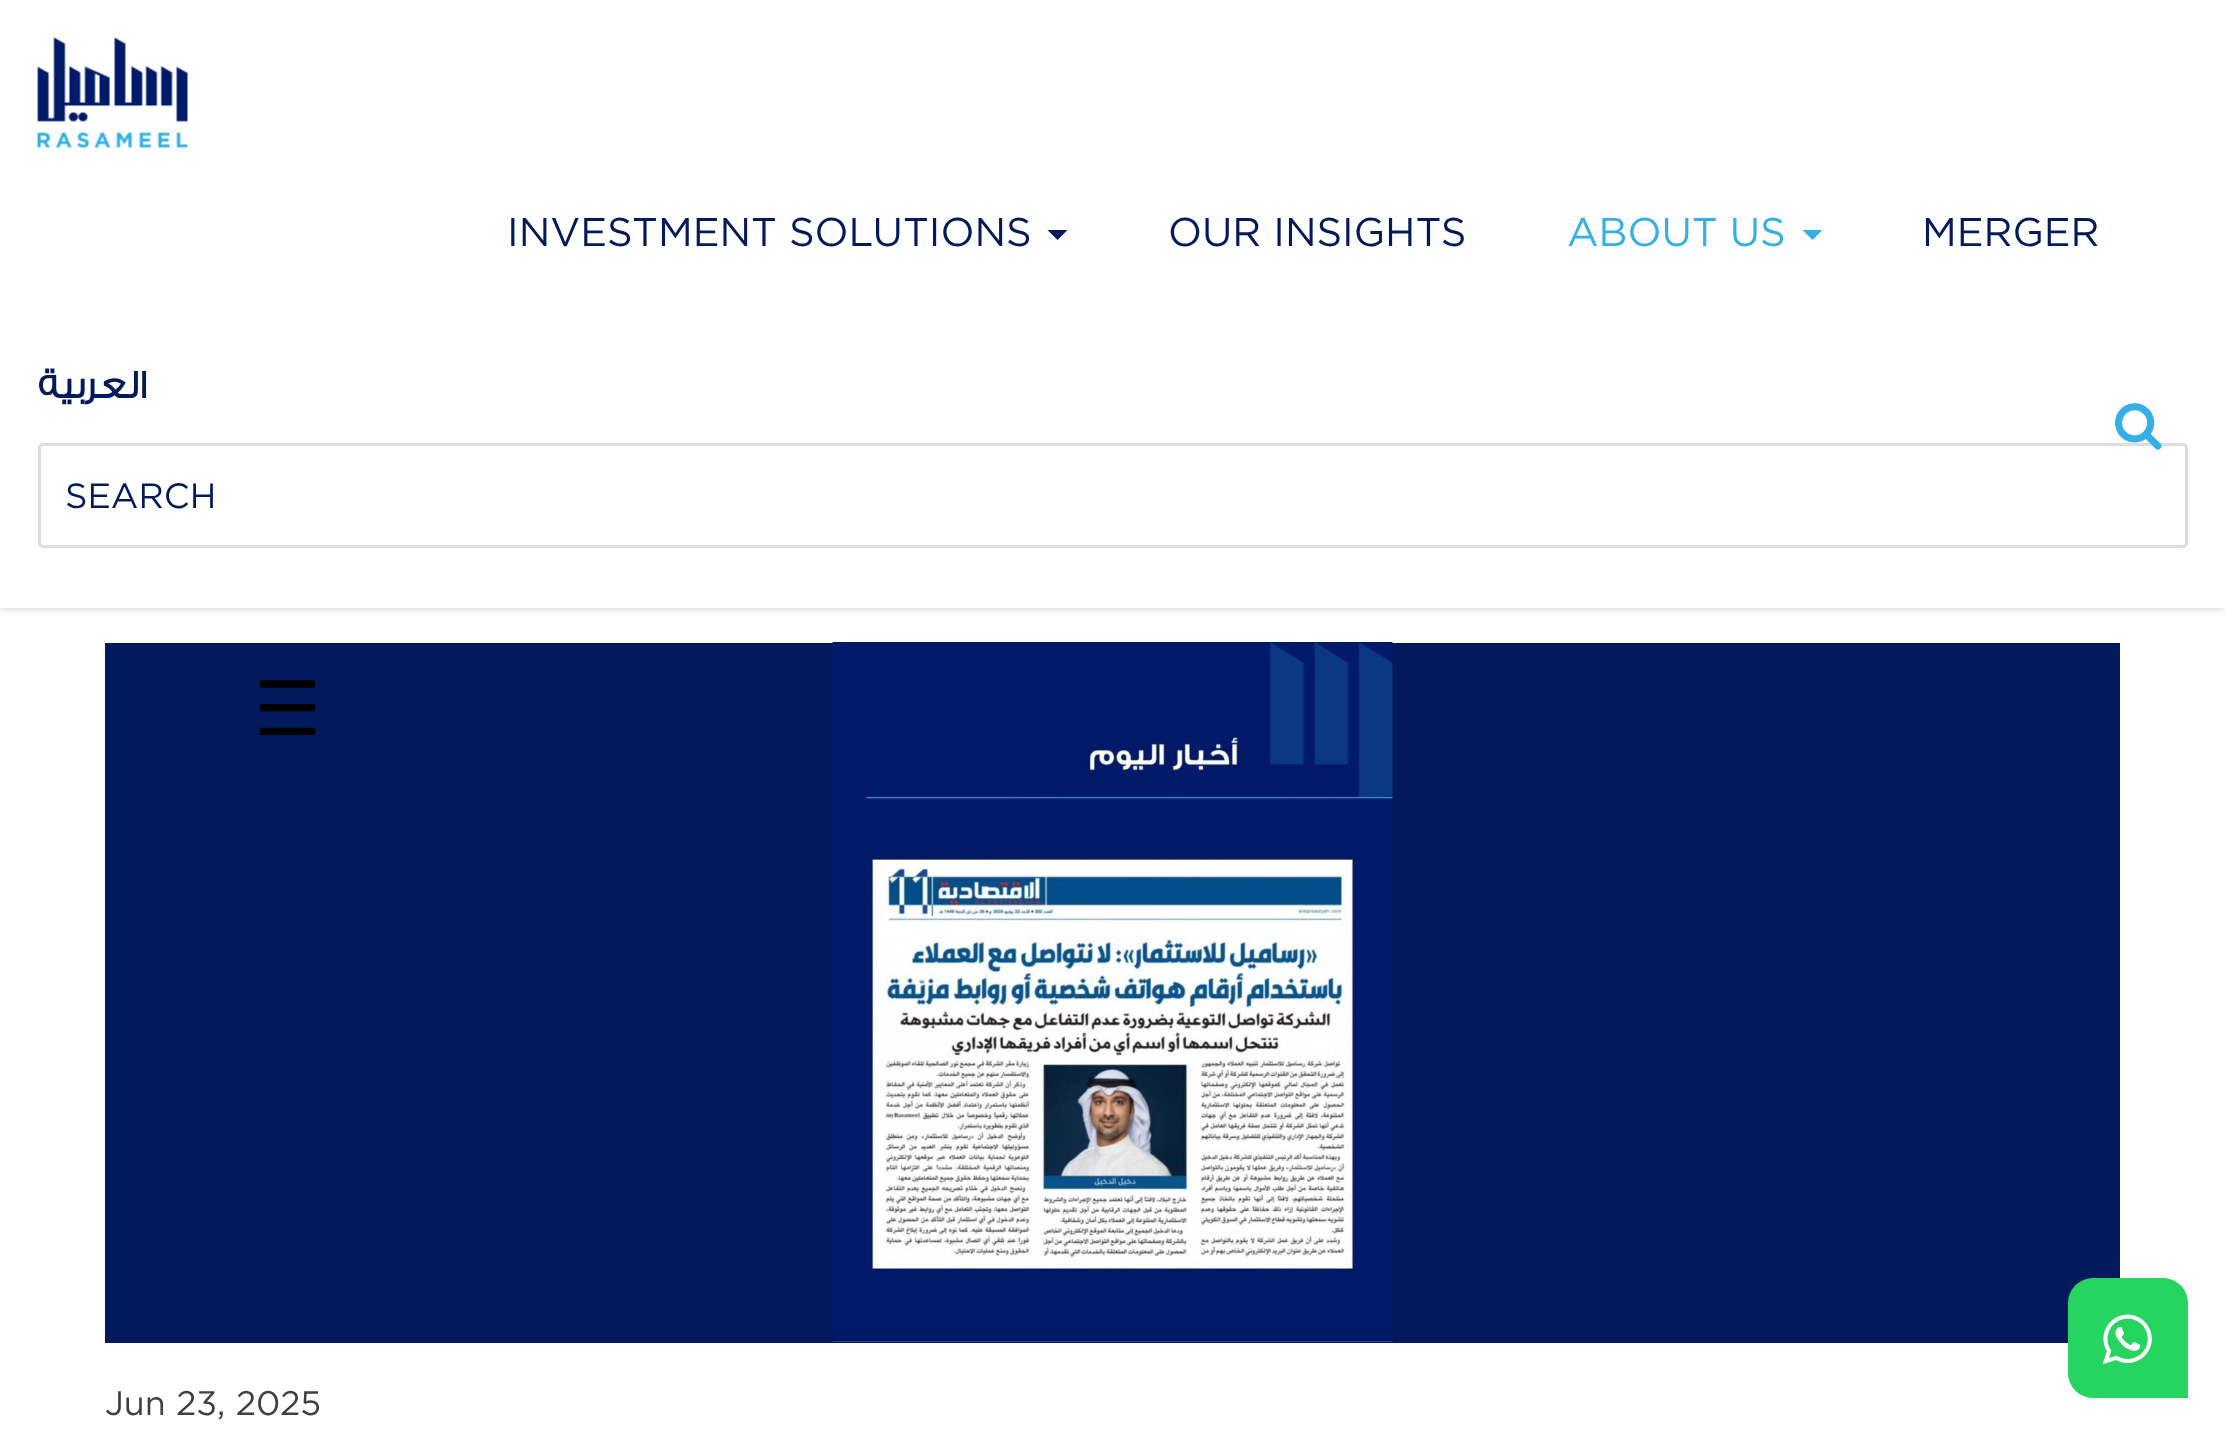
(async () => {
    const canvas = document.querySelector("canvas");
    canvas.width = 2225;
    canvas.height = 1435;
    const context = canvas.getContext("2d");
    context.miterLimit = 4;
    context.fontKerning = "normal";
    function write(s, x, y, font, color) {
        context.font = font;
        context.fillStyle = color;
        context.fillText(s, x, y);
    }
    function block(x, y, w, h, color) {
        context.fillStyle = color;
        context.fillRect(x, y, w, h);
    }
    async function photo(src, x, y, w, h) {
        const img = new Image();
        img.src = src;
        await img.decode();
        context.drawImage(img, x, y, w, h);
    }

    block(0, 0, 2225, 1435, "rgb(255, 255, 255)");
    context.fillStyle = "rgba(0, 0, 0, 0.2)";
    context.filter = "blur(4px)";
    context.beginPath();
    context.rect(0, 0, 2225, 608);
    context.fill();
    context.filter = "none";
    block(0, 0, 2225, 608, "rgb(255, 255, 255)");
    await photo("media/1.png", 37, 37, 151, 111);
    write("INVESTMENT SOLUTIONS", 507, 246, "40px Gotham", "rgb(0, 26, 91)");
    context.beginPath();
    context.moveTo(1047.5, 230);
    context.lineTo(1067.5, 230);
    context.lineTo(1057.5, 240);
    context.closePath();
    context.fill();
    write("OUR INSIGHTS", 1168, 246, "40px Gotham", "rgb(0, 26, 91)");
    write("ABOUT US", 1567, 246, "40px Gotham", "rgb(53, 176, 230)");
    context.beginPath();
    context.moveTo(1802.5, 230);
    context.lineTo(1822.5, 230);
    context.lineTo(1812.5, 240);
    context.closePath();
    context.fill();
    write("MERGER", 1922, 246, "40px Gotham", "rgb(0, 26, 91)");
    context.direction = "rtl";
    write("العربية", 147, 398, "bold 40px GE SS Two", "rgb(0, 26, 91)");
    context.beginPath();
    context.roundRect(39.5, 444.5, 2147, 102, 3.5);
    context.strokeStyle = "rgb(222, 222, 222)";
    context.lineWidth = 3;
    context.stroke();
    await photo("media/2.png", 2115, 403, 47, 47);
    context.direction = "ltr";
    write("SEARCH", 65, 508, "35px Gotham", "rgb(0, 26, 91)");
    block(105, 643, 2015, 700, "rgb(0, 26, 91)");
    write("☰", 254, 735, "75px DejaVu Sans", "rgb(0, 0, 0)");
    context.fillStyle = "rgb(38, 213, 96)";
    context.beginPath();
    context.roundRect(2068, 1278, 120, 120, [25, 25, 0, 25]);
    context.fill();
    await photo("media/3.png", 2102, 1314, 50, 51);
    await photo("media/4.png", 832, 642, 561, 700);
    write("Jun 23, 2025", 105, 1415, "34px Gotham", "rgb(64, 64, 64)");
})();
